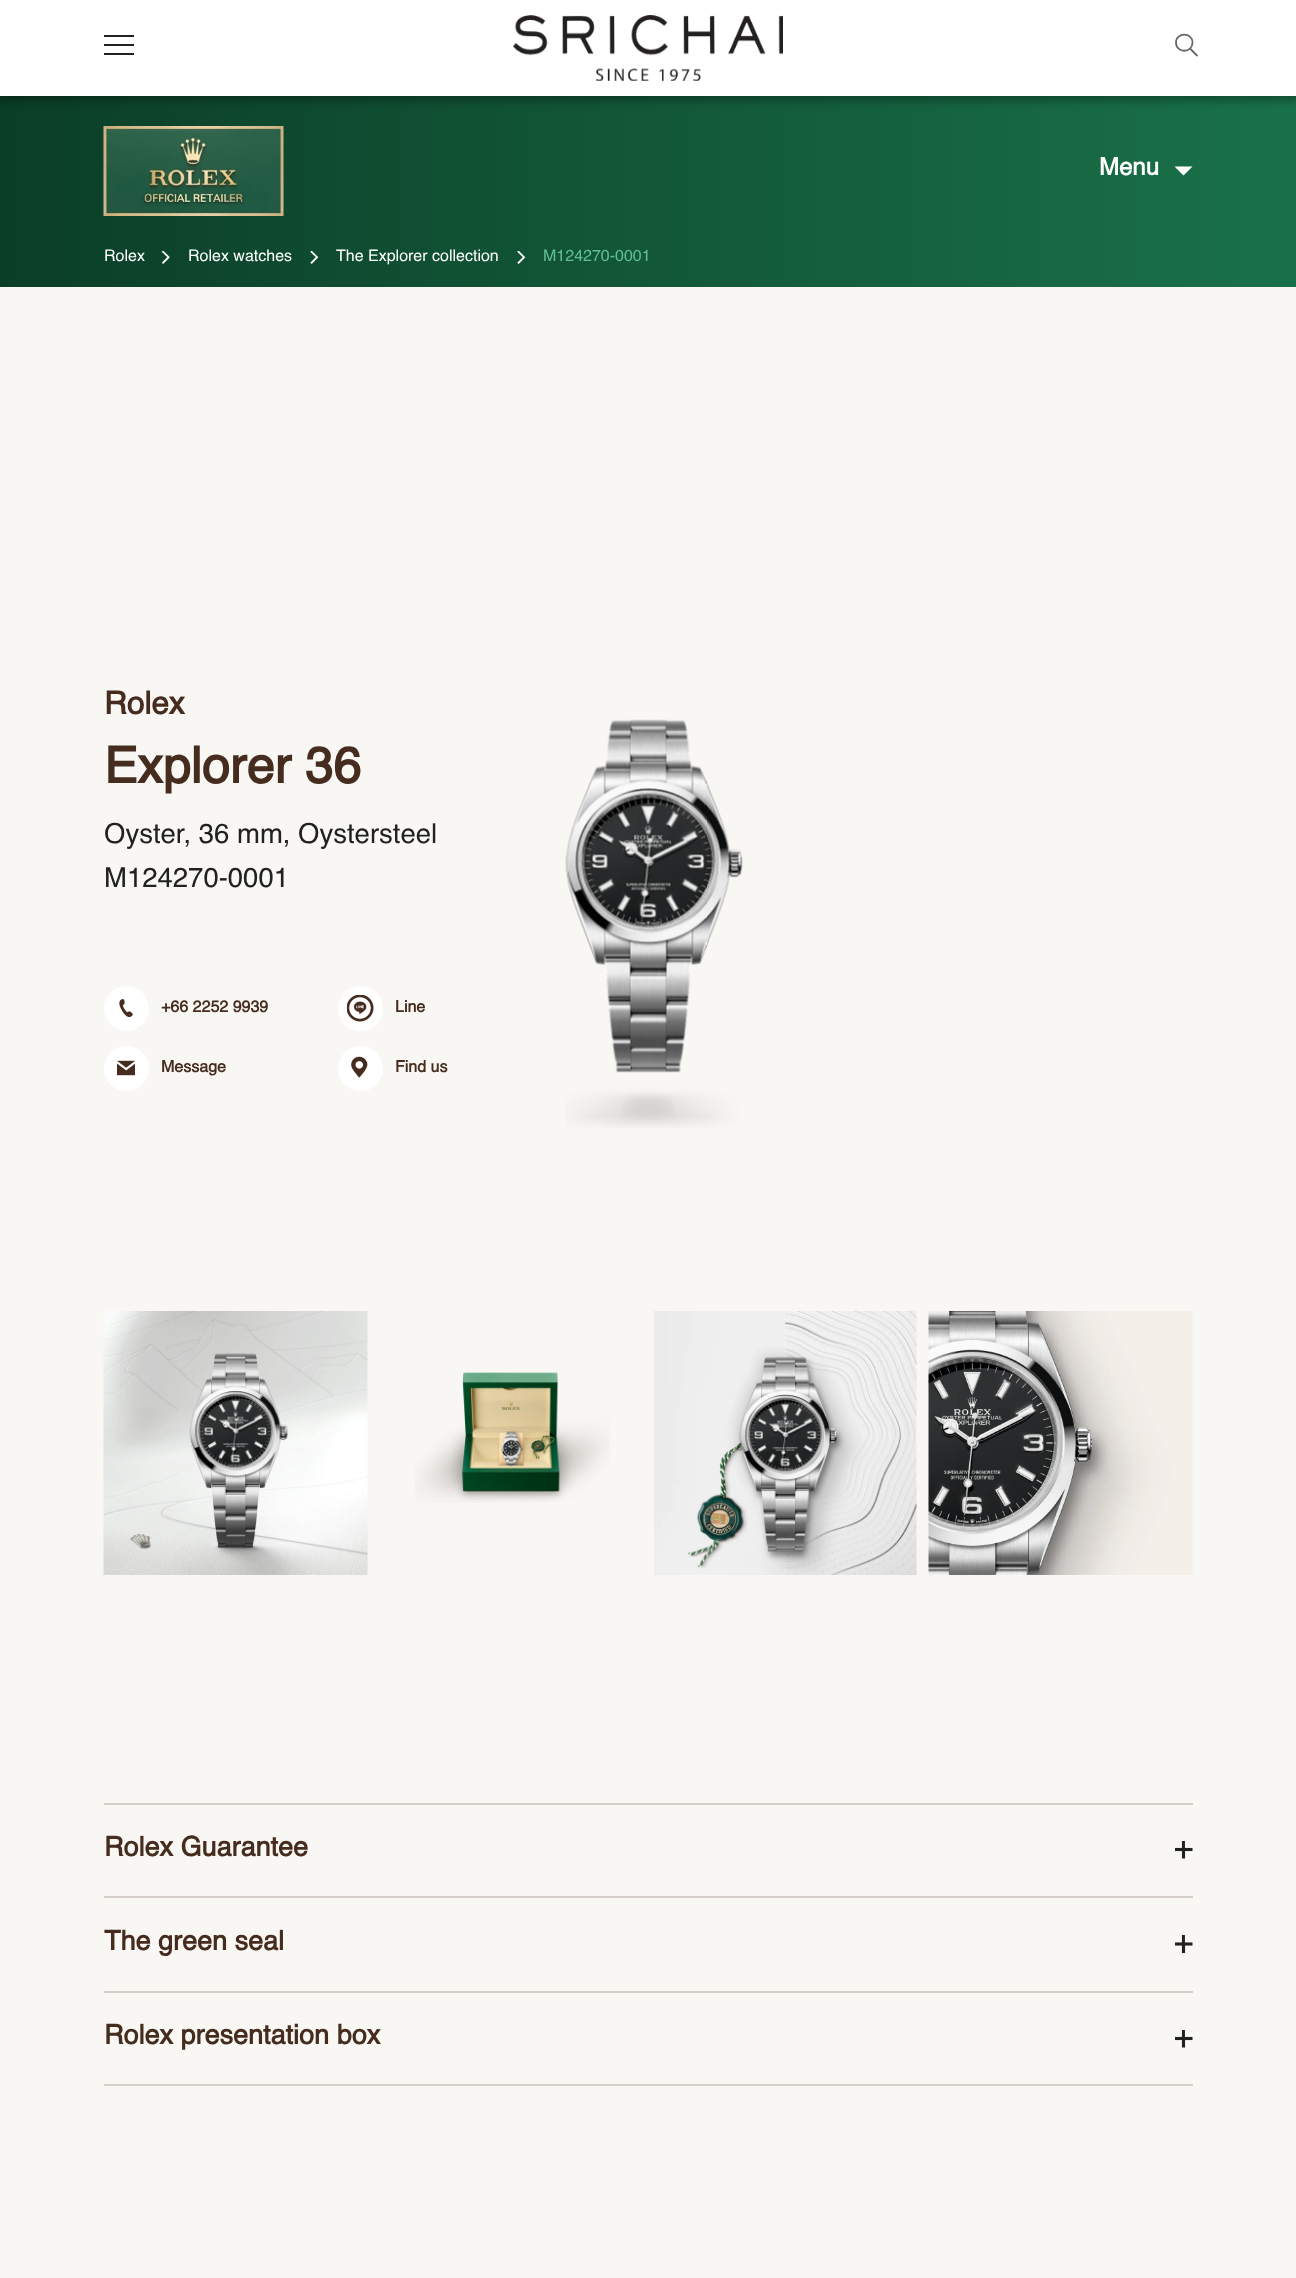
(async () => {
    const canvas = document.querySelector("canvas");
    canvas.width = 1296;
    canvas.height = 2278;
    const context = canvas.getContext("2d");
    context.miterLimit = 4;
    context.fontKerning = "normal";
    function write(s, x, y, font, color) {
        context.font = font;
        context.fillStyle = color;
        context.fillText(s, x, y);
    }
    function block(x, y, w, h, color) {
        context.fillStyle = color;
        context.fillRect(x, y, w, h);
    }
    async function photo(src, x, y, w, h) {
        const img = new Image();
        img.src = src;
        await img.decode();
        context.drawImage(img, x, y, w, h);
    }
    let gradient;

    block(0, 0, 1296, 2278, "rgb(249, 247, 244)");
    gradient = context.createLinearGradient(0, 171, 1296, 171);
    gradient.addColorStop(0, "rgb(11, 62, 39)");
    gradient.addColorStop(1, "rgb(25, 113, 73)");
    context.fillStyle = gradient;
    context.fillRect(0, 96, 1296, 150);
    context.fillStyle = "rgba(0, 0, 0, 0.3)";
    context.filter = "blur(4px)";
    context.beginPath();
    context.rect(-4, -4, 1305, 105);
    context.fill();
    context.filter = "none";
    block(0, 0, 1296, 96, "rgb(255, 255, 255)");
    block(104, 35, 30, 2, "rgb(33, 33, 33)");
    block(104, 44, 30, 2, "rgb(33, 33, 33)");
    block(104, 53, 30, 2, "rgb(33, 33, 33)");
    await photo("media/1.png", 513, 15, 270, 66);
    context.beginPath();
    context.moveTo(1197, 55.5);
    context.lineTo(1190, 48.5);
    context.moveTo(1192.5, 42.5);
    context.bezierCurveTo(1192.5, 53.5, 1176, 53.5, 1176, 42.5);
    context.bezierCurveTo(1176, 32, 1192.5, 32, 1192.5, 42.5);
    context.closePath();
    context.strokeStyle = "rgb(102, 102, 102)";
    context.lineWidth = 1.8;
    context.lineCap = "round";
    context.lineJoin = "round";
    context.stroke();
    await photo("media/2.png", 103, 126, 181, 90);
    write("Menu", 1099, 175, "bold 24px Helvetica", "rgb(255, 255, 255)");
    context.beginPath();
    context.moveTo(1174.5, 166.5);
    context.lineTo(1192.5, 166.5);
    context.lineTo(1183.5, 175.5);
    context.closePath();
    context.fill();
    gradient = context.createLinearGradient(0, 257, 1296, 257);
    gradient.addColorStop(0, "rgb(11, 62, 39)");
    gradient.addColorStop(1, "rgb(25, 113, 73)");
    context.fillStyle = gradient;
    context.fillRect(0, 246, 1296, 41);
    write("Rolex", 104, 261, "16px Helvetica", "rgb(255, 255, 255)");
    await photo("media/3.png", 161, 251, 9, 13);
    write("Rolex watches", 188, 261, "16px Helvetica", "rgb(255, 255, 255)");
    await photo("media/4.png", 310, 251, 9, 13);
    write("The Explorer collection", 336, 261, "16px Helvetica", "rgb(255, 255, 255)");
    await photo("media/5.png", 517, 251, 9, 13);
    write("M124270-0001", 543, 261, "16px Helvetica", "rgb(97, 189, 147)");
    write("Rolex", 104, 714, "bold 31.5px Helvetica", "rgb(69, 44, 30)");
    write("Explorer 36", 104, 783, "bold 50.25px Helvetica", "rgb(69, 44, 30)");
    write("Oyster, 36 mm, Oystersteel", 104, 843, "27.5px Helvetica", "rgb(33, 33, 33)");
    write("M124270-0001", 104, 887, "27.5px Helvetica", "rgb(33, 33, 33)");
    context.fillStyle = "rgb(255, 255, 255)";
    context.beginPath();
    context.arc(126.5, 1008.5, 22.5, 0, Math.PI * 2);
    context.fill();
    await photo("media/6.png", 119, 999, 14, 18);
    write("+66 2252 9939", 161, 1012, "bold 16px Helvetica", "rgb(69, 44, 30)");
    context.fillStyle = "rgb(255, 255, 255)";
    context.beginPath();
    context.arc(360.5, 1008.5, 22.5, 0, Math.PI * 2);
    context.fill();
    await photo("media/7.png", 347, 995, 27, 27);
    write("Line", 395, 1012, "bold 16px Helvetica", "rgb(69, 44, 30)");
    context.fillStyle = "rgb(255, 255, 255)";
    context.beginPath();
    context.arc(126.5, 1068.5, 22.5, 0, Math.PI * 2);
    context.fill();
    await photo("media/8.png", 117, 1060, 18, 16);
    write("Message", 161, 1072, "bold 16px Helvetica", "rgb(69, 44, 30)");
    context.fillStyle = "rgb(255, 255, 255)";
    context.beginPath();
    context.arc(360.5, 1068.5, 22.5, 0, Math.PI * 2);
    context.fill();
    await photo("media/9.png", 351, 1056, 17, 22);
    write("Find us", 395, 1072, "bold 16px Helvetica", "rgb(69, 44, 30)");
    await photo("media/10.png", 565, 719, 178, 409);
    await photo("media/11.png", 103, 1311, 265, 264);
    await photo("media/12.png", 415, 1372, 195, 131);
    await photo("media/13.png", 654, 1311, 263, 264);
    await photo("media/14.png", 928, 1311, 265, 264);
    block(104, 1803, 1089, 2, "rgb(213, 206, 201)");
    block(104, 1896, 1089, 2, "rgb(213, 206, 201)");
    write("Rolex Guarantee", 104, 1856, "bold 27px Helvetica", "rgb(69, 44, 30)");
    await photo("media/15.png", 1175, 1841, 18, 18);
    block(104, 1991, 1089, 2, "rgb(213, 206, 201)");
    write("The green seal", 104, 1950, "bold 27px Helvetica", "rgb(69, 44, 30)");
    await photo("media/16.png", 1175, 1935, 18, 18);
    block(104, 2084, 1089, 2, "rgb(213, 206, 201)");
    write("Rolex presentation box", 104, 2044, "bold 27px Helvetica", "rgb(69, 44, 30)");
    await photo("media/15.png", 1175, 2030, 18, 18);
})();
